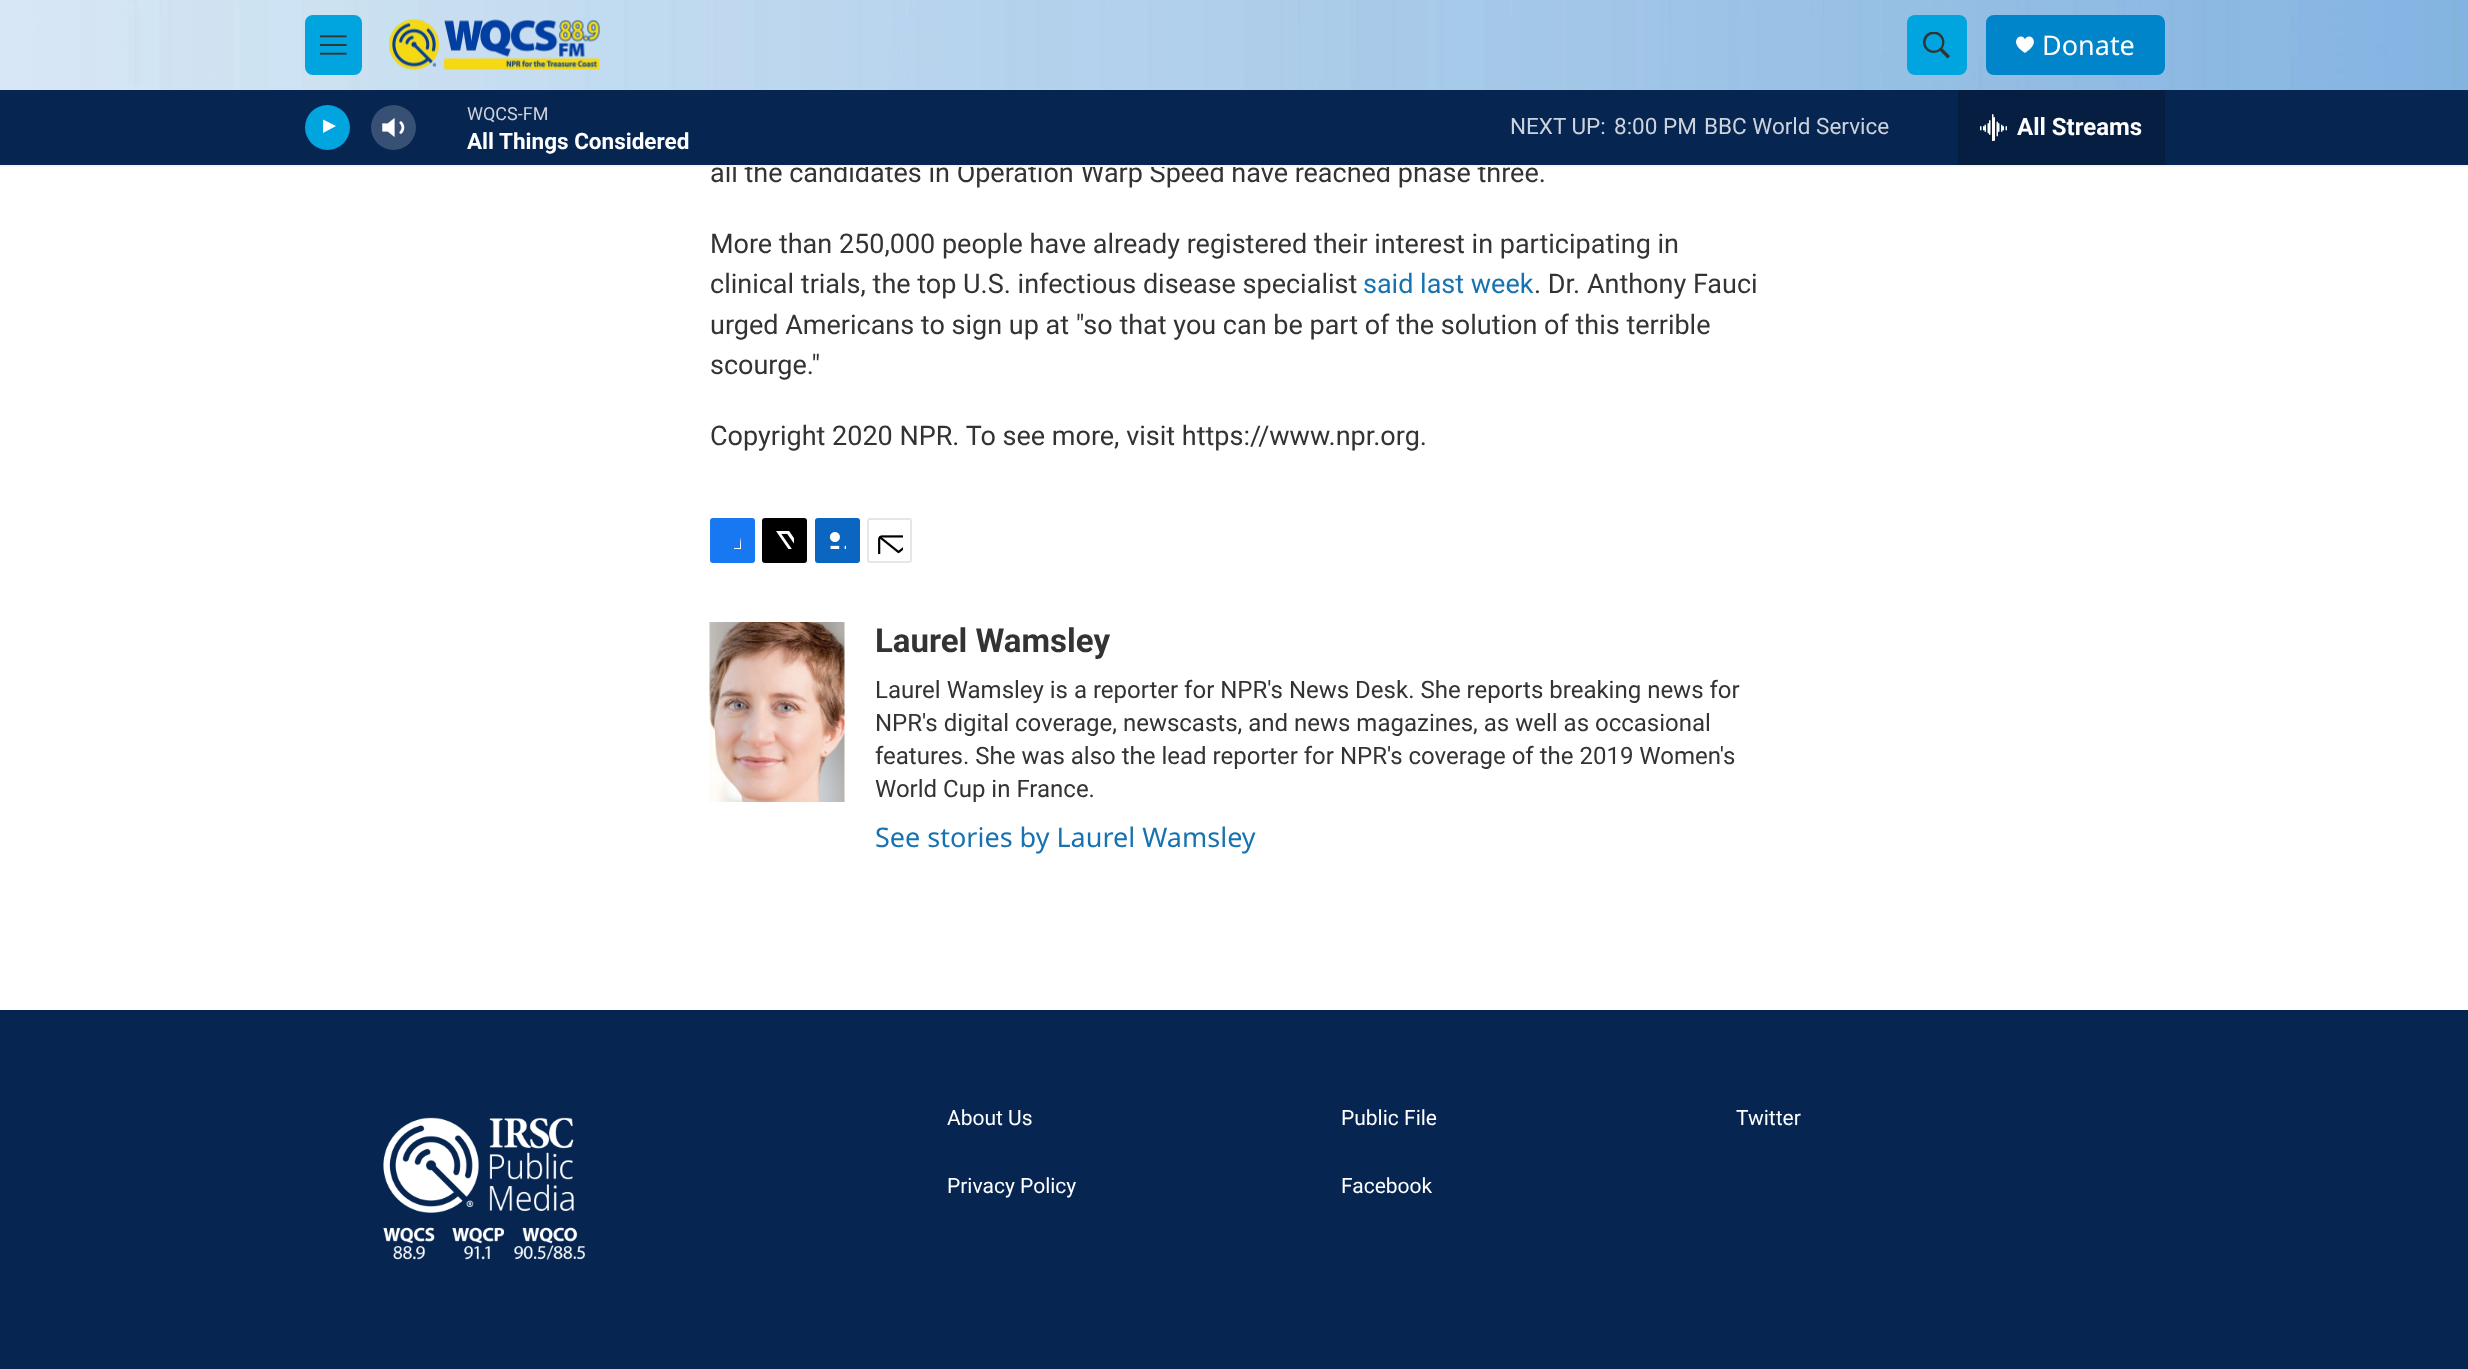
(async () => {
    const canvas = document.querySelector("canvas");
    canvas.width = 2468;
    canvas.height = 1369;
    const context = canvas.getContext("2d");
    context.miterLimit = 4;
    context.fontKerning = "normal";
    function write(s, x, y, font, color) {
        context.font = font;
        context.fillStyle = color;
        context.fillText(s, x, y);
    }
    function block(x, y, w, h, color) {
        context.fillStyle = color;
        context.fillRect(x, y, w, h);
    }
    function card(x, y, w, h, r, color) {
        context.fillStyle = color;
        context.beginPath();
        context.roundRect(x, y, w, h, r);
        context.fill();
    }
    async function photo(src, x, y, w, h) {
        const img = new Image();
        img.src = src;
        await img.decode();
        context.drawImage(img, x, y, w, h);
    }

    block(0, 0, 2468, 1369, "rgb(255, 255, 255)");
    write("all the candidates in Operation Warp Speed have reached phase three.", 710, 182, "27px Roboto", "rgb(51, 51, 51)");
    block(0, 165, 2468, 2, "rgb(245, 245, 245)");
    await photo("media/1.png", 0, 0, 2468, 90);
    card(305, 15, 57, 60, 8, "rgb(0, 164, 223)");
    await photo("media/2.png", 320, 35, 27, 20);
    await photo("media/3.png", 389, 19, 211, 51);
    card(1907, 15, 60, 60, 8, "rgb(0, 164, 223)");
    await photo("media/4.png", 1923, 32, 27, 27);
    card(1986, 15, 179, 60, 8, "rgb(0, 133, 202)");
    context.fillStyle = "rgb(255, 255, 255)";
    context.beginPath();
    context.moveTo(2025, 39.5);
    context.bezierCurveTo(2022, 31.5, 2006.5, 41.5, 2025, 53);
    context.bezierCurveTo(2043.5, 41.5, 2028, 31.5, 2025, 39.5);
    context.closePath();
    context.fill();
    write("Donate", 2042, 55, "27px Noto Sans", "rgb(255, 255, 255)");
    block(0, 90, 2468, 75, "rgb(6, 37, 81)");
    context.fillStyle = "rgb(0, 164, 223)";
    context.beginPath();
    context.arc(327.5, 127.5, 22.5, 0, Math.PI * 2);
    context.fill();
    context.save();
    context.beginPath();
    context.rect(323, 117, 17, 23);
    context.clip();
    context.fillStyle = "rgb(255, 255, 255)";
    context.beginPath();
    context.moveTo(322, 119);
    context.lineTo(336, 126);
    context.lineTo(322, 133.5);
    context.closePath();
    context.fill();
    context.restore();
    await photo("media/5.png", 382, 118, 23, 19);
    context.fillStyle = "rgba(255, 255, 255, 0.2)";
    context.beginPath();
    context.arc(393.5, 127.5, 22.5, 0, Math.PI * 2);
    context.fill();
    write("WQCS-FM", 467, 120, "18px Roboto", "rgb(205, 211, 220)");
    write("All Things Considered", 467, 149, "bold 22.5px 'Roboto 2'", "rgb(255, 255, 255)");
    write("NEXT UP:", 1510, 134, "22.5px Roboto", "rgb(205, 211, 220)");
    write("8:00 PM", 1614, 134, "22.5px Roboto", "rgb(205, 211, 220)");
    write("BBC World Service", 1704, 134, "22.5px Roboto", "rgb(205, 211, 220)");
    block(1958, 90, 207, 75, "rgb(5, 30, 65)");
    await photo("media/6.png", 1980, 114, 27, 27);
    write("All Streams", 2017, 135, "bold 24px 'Roboto 2'", "rgb(255, 255, 255)");
    write("More than 250,000 people have already registered their interest in participating in", 710, 253, "27px Roboto", "rgb(51, 51, 51)");
    write("clinical trials, the top U.S. infectious disease specialist", 710, 293, "27px Roboto", "rgb(51, 51, 51)");
    write("said last week", 1363, 293, "27px Roboto", "rgb(23, 114, 176)");
    write(". Dr. Anthony Fauci", 1534, 293, "27px Roboto", "rgb(51, 51, 51)");
    write("urged Americans to sign up at \"so that you can be part of the solution of this terrible", 710, 334, "27px Roboto", "rgb(51, 51, 51)");
    write("scourge.\"", 710, 374, "27px Roboto", "rgb(51, 51, 51)");
    write("Copyright 2020 NPR. To see more, visit https://www.npr.org.", 710, 445, "27px Roboto", "rgb(51, 51, 51)");
    card(710, 518, 45, 45, 3, "rgb(23, 120, 242)");
    context.save();
    context.beginPath();
    context.rect(723, 531, 18, 18);
    context.clip();
    context.fillStyle = "rgb(255, 255, 255)";
    context.beginPath();
    context.moveTo(748, 563);
    context.lineTo(740, 563);
    context.lineTo(740, 555);
    context.lineTo(734, 555);
    context.lineTo(734, 548);
    context.lineTo(740, 548);
    context.bezierCurveTo(740, 535.5, 742, 530, 755, 532);
    context.lineTo(755, 539);
    context.bezierCurveTo(746.5, 539, 748, 540.5, 748, 548);
    context.lineTo(755, 548);
    context.lineTo(754, 555);
    context.lineTo(748, 555);
    context.closePath();
    context.fill();
    context.restore();
    card(762, 518, 45, 45, 3, "rgb(0, 0, 0)");
    await photo("media/7.png", 776, 531, 18, 18);
    card(815, 518, 45, 45, 3, "rgb(10, 102, 193)");
    await photo("media/8.png", 829, 532, 17, 17);
    context.beginPath();
    context.roundRect(868, 519, 43, 43, 2);
    context.strokeStyle = "rgb(230, 230, 230)";
    context.lineWidth = 2;
    context.stroke();
    await photo("media/9.png", 878, 535, 25, 19);
    await photo("media/10.png", 709, 622, 136, 180);
    write("Laurel Wamsley", 875, 652, "bold 33px Roboto", "rgb(51, 51, 51)");
    write("Laurel Wamsley is a reporter for NPR's News Desk. She reports breaking news for", 875, 698, "24px Roboto", "rgb(51, 51, 51)");
    write("NPR's digital coverage, newscasts, and news magazines, as well as occasional", 875, 731, "24px Roboto", "rgb(51, 51, 51)");
    write("features. She was also the lead reporter for NPR's coverage of the 2019 Women's", 875, 764, "24px Roboto", "rgb(51, 51, 51)");
    write("World Cup in France.", 875, 797, "24px Roboto", "rgb(51, 51, 51)");
    write("See stories by Laurel Wamsley", 875, 847, "27px Noto Sans", "rgb(23, 114, 176)");
    block(0, 1010, 2468, 359, "rgb(6, 37, 81)");
    await photo("media/11.png", 383, 1117, 202, 143);
    write("About Us", 947, 1125, "21px Roboto", "rgb(255, 255, 255)");
    write("Public File", 1341, 1125, "21px Roboto", "rgb(255, 255, 255)");
    write("Twitter", 1736, 1125, "21px Roboto", "rgb(255, 255, 255)");
    write("Privacy Policy", 947, 1193, "21px Roboto", "rgb(255, 255, 255)");
    write("Facebook", 1341, 1193, "21px Roboto", "rgb(255, 255, 255)");
})();
